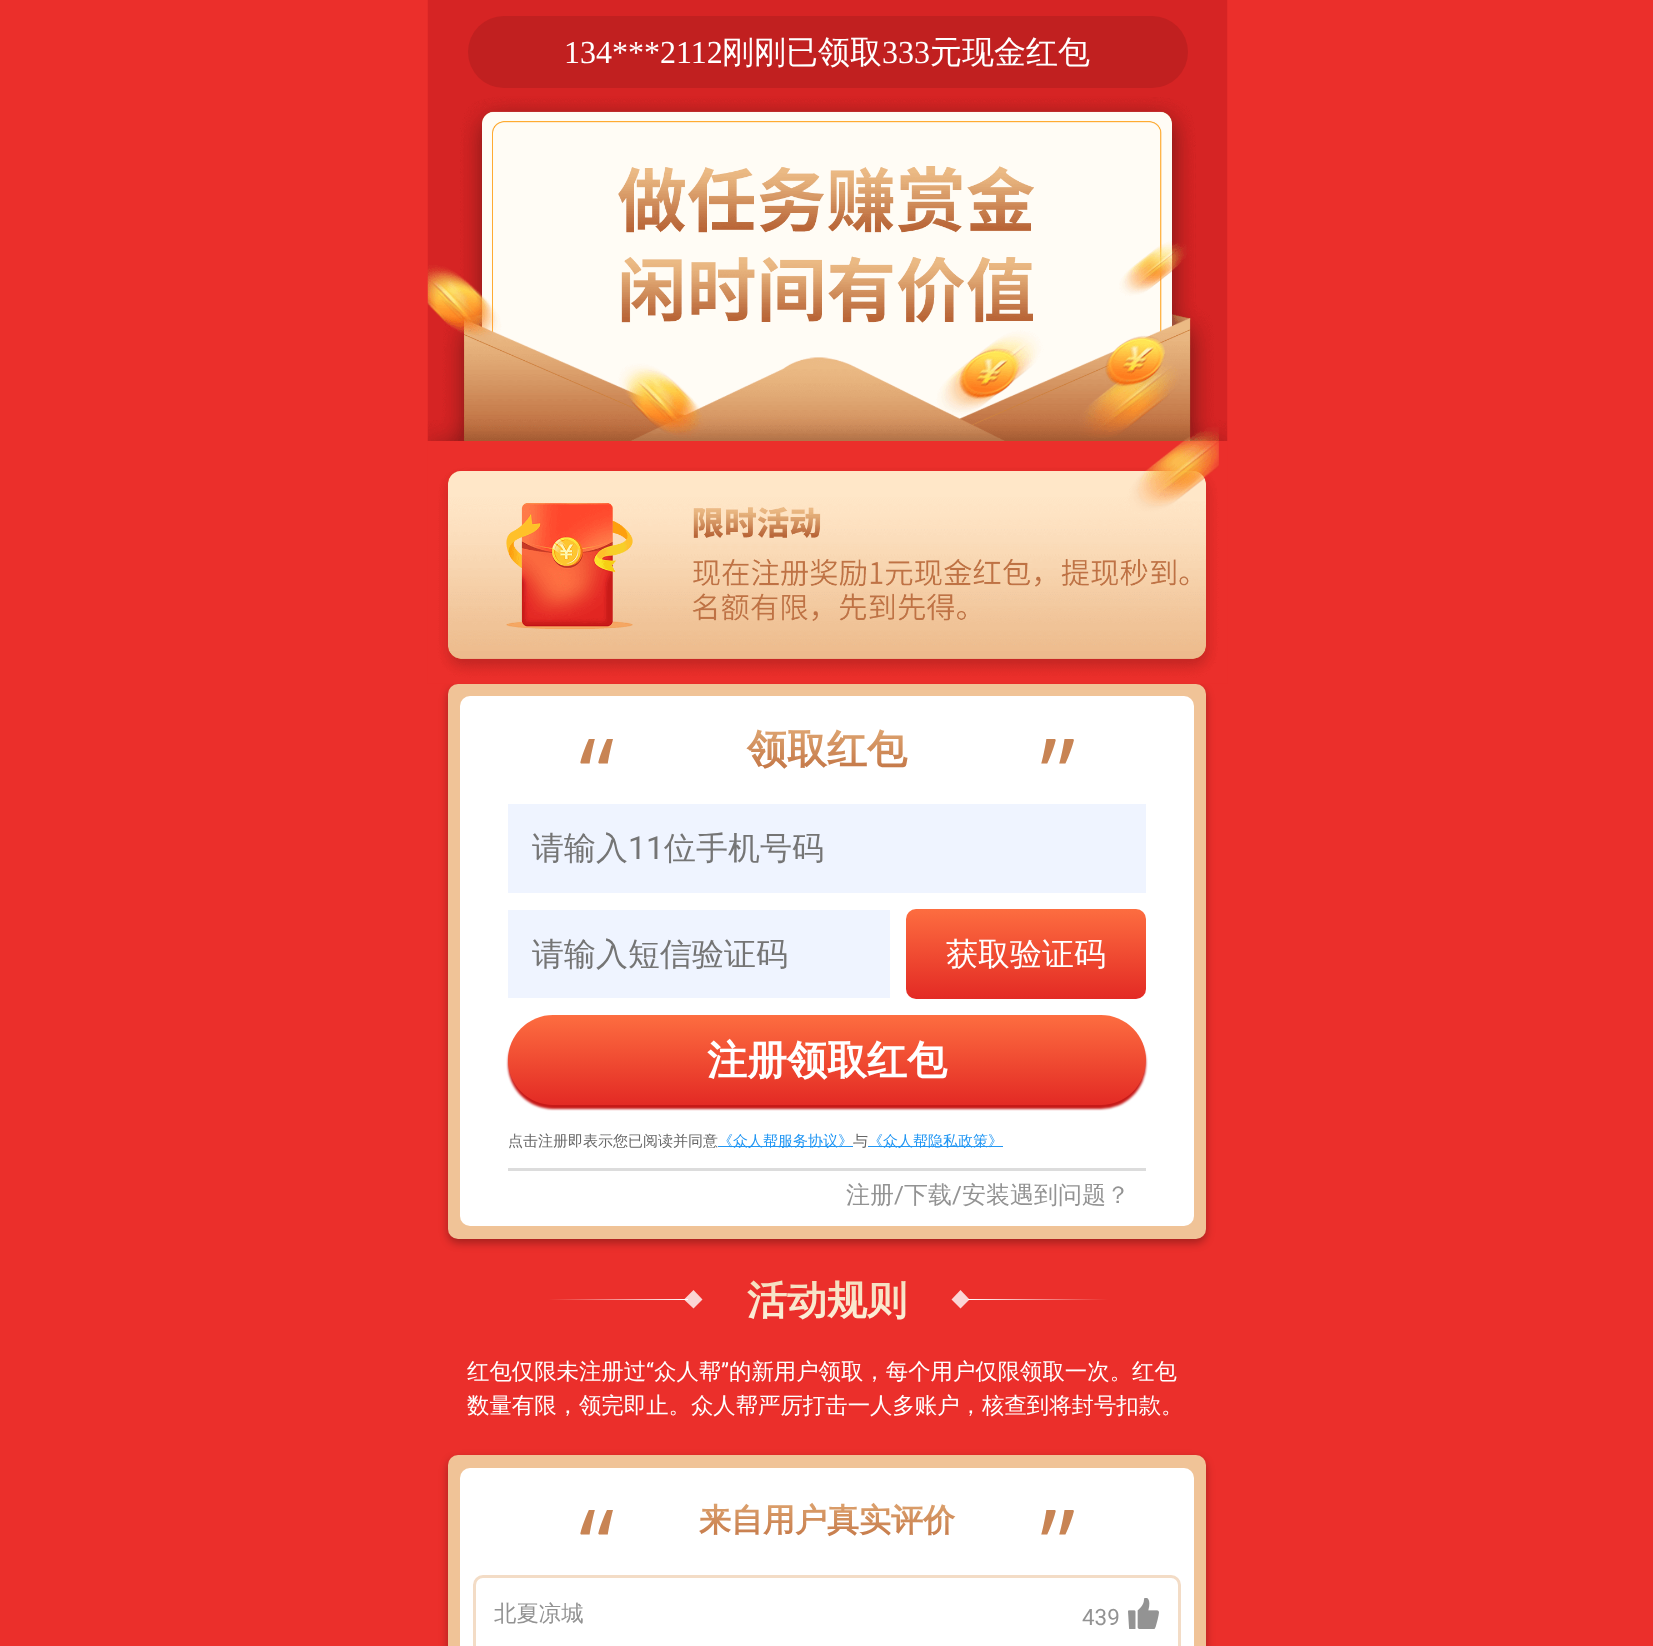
(async () => {
    const canvas = document.querySelector("canvas");
    canvas.width = 1653;
    canvas.height = 1646;
    const context = canvas.getContext("2d");
    context.miterLimit = 4;
    context.fontKerning = "normal";
    function write(s, x, y, font, color) {
        context.font = font;
        context.fillStyle = color;
        context.fillText(s, x, y);
    }
    function block(x, y, w, h, color) {
        context.fillStyle = color;
        context.fillRect(x, y, w, h);
    }
    function card(x, y, w, h, r, color) {
        context.fillStyle = color;
        context.beginPath();
        context.roundRect(x, y, w, h, r);
        context.fill();
    }
    async function photo(src, x, y, w, h) {
        const img = new Image();
        img.src = src;
        await img.decode();
        context.drawImage(img, x, y, w, h);
    }
    let gradient;

    block(0, 0, 1653, 1646, "rgb(235, 47, 43)");
    context.fillStyle = "rgba(0, 0, 0, 0.3)";
    context.filter = "blur(4px)";
    context.beginPath();
    context.roundRect(448, 688, 758, 555, 10);
    context.fill();
    context.filter = "none";
    await photo("media/1.png", 427, 0, 801, 684);
    card(468, 16, 720, 72, 36, "rgb(193, 32, 32)");
    write("134***2112", 564, 63, "32px Liberation Serif", "rgb(255, 255, 255)");
    write("刚刚已领取", 722, 63, "500 32px WenQuanYi Zen Hei", "rgb(255, 255, 255)");
    write("333", 882, 63, "32px Liberation Serif", "rgb(255, 255, 255)");
    write("元现金红包", 930, 63, "500 32px WenQuanYi Zen Hei", "rgb(255, 255, 255)");
    card(448, 684, 758, 555, 10, "rgb(240, 195, 151)");
    card(460, 696, 734, 530, 10, "rgb(255, 255, 255)");
    write("“", 579, 811, "101px Open Sans", "rgb(200, 132, 84)");
    context.font = "bold 40px WenQuanYi Zen Hei";
    gradient = context.createLinearGradient(827, 788, 827, 708);
    gradient.addColorStop(0, "rgb(184, 99, 53)");
    gradient.addColorStop(1, "rgb(235, 187, 133)");
    context.fillStyle = gradient;
    context.fillText("领取红包", 747, 763);
    write("”", 1040, 811, "101px Open Sans", "rgb(200, 132, 84)");
    block(508, 804, 638, 89, "rgb(239, 244, 255)");
    write("请输入", 532, 859, "500 32px WenQuanYi Zen Hei", "rgb(117, 117, 117)");
    write("11", 628, 859, "32px Roboto", "rgb(117, 117, 117)");
    write("位手机号码", 664, 859, "500 32px WenQuanYi Zen Hei", "rgb(117, 117, 117)");
    block(508, 910, 382, 88, "rgb(239, 244, 255)");
    write("请输入短信验证码", 532, 965, "500 32px WenQuanYi Zen Hei", "rgb(117, 117, 117)");
    gradient = context.createLinearGradient(1026, 909, 1026, 999);
    gradient.addColorStop(0, "rgb(253, 109, 64)");
    gradient.addColorStop(1, "rgb(227, 42, 36)");
    context.fillStyle = gradient;
    context.beginPath();
    context.roundRect(906, 909, 240, 90, 10);
    context.fill();
    write("获取验证码", 946, 965, "500 32px WenQuanYi Zen Hei", "rgb(255, 255, 255)");
    context.fillStyle = "rgb(198, 25, 23)";
    context.filter = "blur(1px)";
    context.beginPath();
    context.roundRect(508, 1019, 638, 90, 45);
    context.fill();
    context.filter = "none";
    gradient = context.createLinearGradient(827, 1015, 827, 1105);
    gradient.addColorStop(0, "rgb(253, 109, 64)");
    gradient.addColorStop(1, "rgb(227, 42, 36)");
    context.fillStyle = gradient;
    context.beginPath();
    context.roundRect(508, 1015, 638, 90, 45);
    context.fill();
    write("注册领取红包", 707, 1074, "bold 40px WenQuanYi Zen Hei", "rgb(255, 255, 255)");
    write("点击注册即表示您已阅读并同意", 508, 1146, "500 15px WenQuanYi Zen Hei", "rgb(102, 102, 102)");
    block(718, 1146, 135, 1, "rgb(33, 150, 243)");
    write("《众人帮服务协议》", 718, 1146, "500 15px WenQuanYi Zen Hei", "rgb(33, 150, 243)");
    write("与", 853, 1146, "500 15px WenQuanYi Zen Hei", "rgb(102, 102, 102)");
    block(868, 1146, 135, 1, "rgb(33, 150, 243)");
    write("《众人帮隐私政策》", 868, 1146, "500 15px WenQuanYi Zen Hei", "rgb(33, 150, 243)");
    block(508, 1168, 638, 3, "rgb(220, 220, 220)");
    write("注册", 846, 1203, "500 24px WenQuanYi Zen Hei", "rgb(147, 147, 147)");
    write("/", 894, 1203, "24px Roboto", "rgb(147, 147, 147)");
    write("下载", 904, 1203, "500 24px WenQuanYi Zen Hei", "rgb(147, 147, 147)");
    write("/", 952, 1203, "24px Roboto", "rgb(147, 147, 147)");
    write("安装遇到问题？", 962, 1203, "500 24px WenQuanYi Zen Hei", "rgb(147, 147, 147)");
    gradient = context.createLinearGradient(548, 1299, 688, 1299);
    gradient.addColorStop(0, "rgb(235, 47, 43)");
    gradient.addColorStop(1, "rgb(255, 255, 255)");
    context.fillStyle = gradient;
    context.fillRect(548, 1299, 140, 1);
    context.fillStyle = "rgba(255, 255, 255, 0.8)";
    context.beginPath();
    context.moveTo(693.5, 1290);
    context.lineTo(702.5, 1299.5);
    context.lineTo(693.5, 1308.5);
    context.lineTo(684, 1299.5);
    context.closePath();
    context.fill();
    context.font = "bold 40px WenQuanYi Zen Hei";
    gradient = context.createLinearGradient(827, 1339, 827, 1259);
    gradient.addColorStop(0, "rgb(255, 246, 228)");
    gradient.addColorStop(1, "rgb(241, 214, 178)");
    context.fillStyle = gradient;
    context.fillText("活动规则", 747, 1314);
    context.fillStyle = "rgb(251, 213, 213)";
    context.beginPath();
    context.moveTo(960.5, 1290);
    context.lineTo(969.5, 1299.5);
    context.lineTo(960.5, 1308.5);
    context.lineTo(951.5, 1299.5);
    context.closePath();
    context.fill();
    gradient = context.createLinearGradient(968, 1299, 1108, 1299);
    gradient.addColorStop(0, "rgb(255, 255, 255)");
    gradient.addColorStop(1, "rgba(255, 255, 255, 0)");
    context.fillStyle = gradient;
    context.fillRect(968, 1299, 140, 1);
    write("红包仅限未注册过", 467, 1379, "500 22.4px WenQuanYi Zen Hei", "rgb(255, 255, 255)");
    write("“", 646, 1379, "22.4px Roboto", "rgb(255, 255, 255)");
    write("众人帮", 654, 1379, "500 22.4px WenQuanYi Zen Hei", "rgb(255, 255, 255)");
    write("”", 721, 1379, "22.4px Roboto", "rgb(255, 255, 255)");
    write("的新用户领取，每个用户仅限领取一次。红包", 729, 1379, "500 22.4px WenQuanYi Zen Hei", "rgb(255, 255, 255)");
    write("数量有限，领完即止。众人帮严厉打击一人多账户，核查到将封号扣款。", 467, 1413, "500 22.4px WenQuanYi Zen Hei", "rgb(255, 255, 255)");
    context.fillStyle = "rgba(0, 0, 0, 0.3)";
    context.filter = "blur(4px)";
    context.beginPath();
    context.roundRect(448, 1459, 758, 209, 10);
    context.fill();
    context.filter = "none";
    context.fillStyle = "rgb(240, 195, 151)";
    context.beginPath();
    context.roundRect(448, 1455, 758, 191, [10, 10, 0, 0]);
    context.fill();
    context.fillStyle = "rgb(255, 255, 255)";
    context.beginPath();
    context.roundRect(460, 1468, 734, 178, [10, 10, 0, 0]);
    context.fill();
    write("“", 579, 1582, "101px Open Sans", "rgb(200, 132, 84)");
    context.font = "bold 32px WenQuanYi Zen Hei";
    gradient = context.createLinearGradient(827, 1559, 827, 1479);
    gradient.addColorStop(0, "rgb(184, 99, 53)");
    gradient.addColorStop(1, "rgb(235, 187, 133)");
    context.fillStyle = gradient;
    context.fillText("来自用户真实评价", 699, 1531);
    write("”", 1040, 1582, "101px Open Sans", "rgb(200, 132, 84)");
    context.beginPath();
    context.roundRect(474.5, 1576.5, 705, 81, 8.5);
    context.strokeStyle = "rgb(243, 220, 198)";
    context.lineWidth = 3;
    context.stroke();
    write("北夏凉城", 494, 1621, "500 22.4px WenQuanYi Zen Hei", "rgb(147, 147, 147)");
    await photo("media/2.png", 1128, 1598, 31, 31);
    write("439", 1082, 1625, "22.4px Roboto", "rgb(147, 147, 147)");
})();
